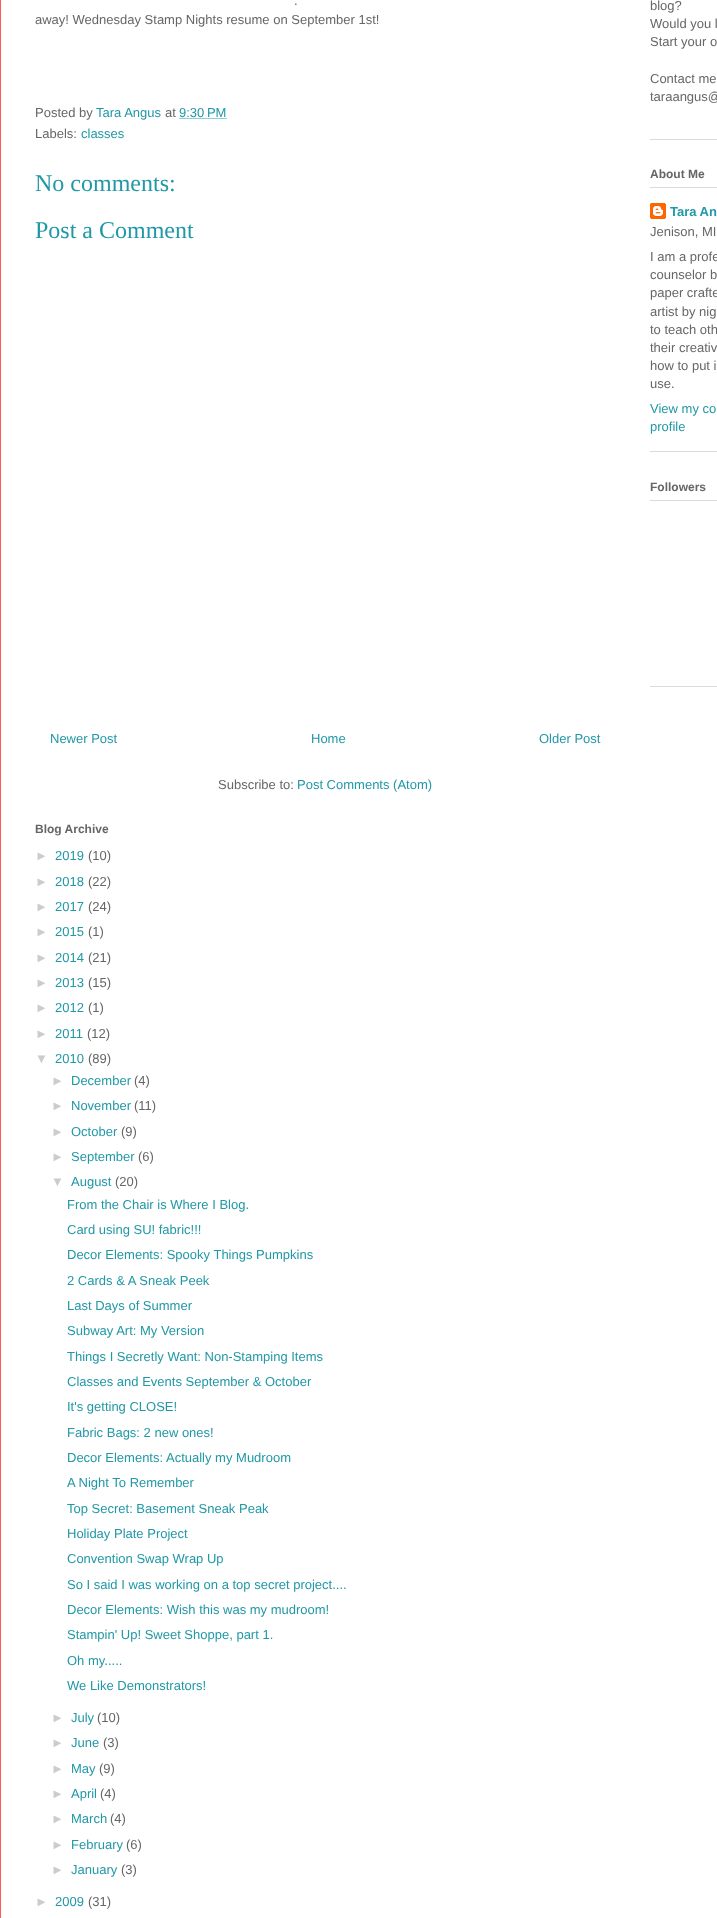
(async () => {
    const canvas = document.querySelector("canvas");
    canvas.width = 717;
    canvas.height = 1918;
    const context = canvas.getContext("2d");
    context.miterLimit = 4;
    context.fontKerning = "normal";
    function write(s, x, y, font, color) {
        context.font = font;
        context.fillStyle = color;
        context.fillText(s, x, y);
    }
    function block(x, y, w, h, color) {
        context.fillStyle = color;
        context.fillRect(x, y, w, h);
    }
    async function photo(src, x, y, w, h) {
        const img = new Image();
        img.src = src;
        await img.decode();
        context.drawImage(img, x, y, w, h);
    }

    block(0, 0, 717, 1918, "rgb(255, 255, 255)");
    block(0, 0, 1, 1918, "rgb(251, 94, 83)");
    write(".", 294, 5, "13px Liberation Sans", "rgb(102, 102, 102)");
    write("away! Wednesday Stamp Nights resume on September 1st!", 35, 24, "13px Liberation Sans", "rgb(102, 102, 102)");
    write("Posted by", 35, 117, "13px Liberation Sans", "rgb(102, 102, 102)");
    write("Tara Angus", 96, 117, "13px Liberation Sans", "rgb(33, 152, 166)");
    write("at", 165, 117, "13px Liberation Sans", "rgb(102, 102, 102)");
    write("9:30 PM", 179, 117, "13px Liberation Sans", "rgb(33, 152, 166)");
    context.beginPath();
    context.moveTo(179.5, 118.5);
    context.lineTo(227, 118.5);
    context.strokeStyle = "rgb(33, 152, 166)";
    context.setLineDash([1, 1]);
    context.stroke();
    write("Labels:", 35, 138, "13px Liberation Sans", "rgb(102, 102, 102)");
    write("classes", 81, 138, "13px Liberation Sans", "rgb(33, 152, 166)");
    write("No comments:", 35, 191, "24px Liberation Serif", "rgb(33, 152, 166)");
    write("Post a Comment", 35, 238, "24px Liberation Serif", "rgb(33, 152, 166)");
    write("Newer Post", 50, 743, "13px Liberation Sans", "rgb(33, 152, 166)");
    write("Home", 311, 743, "13px Liberation Sans", "rgb(33, 152, 166)");
    write("Older Post", 539, 743, "13px Liberation Sans", "rgb(33, 152, 166)");
    write("Subscribe to:", 218, 789, "13px Liberation Sans", "rgb(102, 102, 102)");
    write("Post Comments (Atom)", 297, 789, "13px Liberation Sans", "rgb(33, 152, 166)");
    write("Blog Archive", 35, 833, "bold 12px Liberation Sans", "rgb(102, 102, 102)");
    write("►", 35, 860, "13px Liberation Sans", "rgb(204, 204, 204)");
    write("2019", 55, 860, "13px Liberation Sans", "rgb(33, 152, 166)");
    write("(10)", 88, 860, "13px Liberation Sans", "rgb(102, 102, 102)");
    write("►", 35, 886, "13px Liberation Sans", "rgb(204, 204, 204)");
    write("2018", 55, 886, "13px Liberation Sans", "rgb(33, 152, 166)");
    write("(22)", 88, 886, "13px Liberation Sans", "rgb(102, 102, 102)");
    write("►", 35, 911, "13px Liberation Sans", "rgb(204, 204, 204)");
    write("2017", 55, 911, "13px Liberation Sans", "rgb(33, 152, 166)");
    write("(24)", 88, 911, "13px Liberation Sans", "rgb(102, 102, 102)");
    write("►", 35, 936, "13px Liberation Sans", "rgb(204, 204, 204)");
    write("2015", 55, 936, "13px Liberation Sans", "rgb(33, 152, 166)");
    write("(1)", 88, 936, "13px Liberation Sans", "rgb(102, 102, 102)");
    write("►", 35, 962, "13px Liberation Sans", "rgb(204, 204, 204)");
    write("2014", 55, 962, "13px Liberation Sans", "rgb(33, 152, 166)");
    write("(21)", 88, 962, "13px Liberation Sans", "rgb(102, 102, 102)");
    write("►", 35, 987, "13px Liberation Sans", "rgb(204, 204, 204)");
    write("2013", 55, 987, "13px Liberation Sans", "rgb(33, 152, 166)");
    write("(15)", 88, 987, "13px Liberation Sans", "rgb(102, 102, 102)");
    write("►", 35, 1012, "13px Liberation Sans", "rgb(204, 204, 204)");
    write("2012", 55, 1012, "13px Liberation Sans", "rgb(33, 152, 166)");
    write("(1)", 88, 1012, "13px Liberation Sans", "rgb(102, 102, 102)");
    write("►", 35, 1038, "13px Liberation Sans", "rgb(204, 204, 204)");
    write("2011", 55, 1038, "13px Liberation Sans", "rgb(33, 152, 166)");
    write("(12)", 87, 1038, "13px Liberation Sans", "rgb(102, 102, 102)");
    write("▼", 35, 1063, "13px Liberation Sans", "rgb(204, 204, 204)");
    write("2010", 55, 1063, "13px Liberation Sans", "rgb(33, 152, 166)");
    write("(89)", 88, 1063, "13px Liberation Sans", "rgb(102, 102, 102)");
    write("►", 51, 1085, "13px Liberation Sans", "rgb(204, 204, 204)");
    write("December", 71, 1085, "13px Liberation Sans", "rgb(33, 152, 166)");
    write("(4)", 134, 1085, "13px Liberation Sans", "rgb(102, 102, 102)");
    write("►", 51, 1110, "13px Liberation Sans", "rgb(204, 204, 204)");
    write("November", 71, 1110, "13px Liberation Sans", "rgb(33, 152, 166)");
    write("(11)", 134, 1110, "13px Liberation Sans", "rgb(102, 102, 102)");
    write("►", 51, 1136, "13px Liberation Sans", "rgb(204, 204, 204)");
    write("October", 71, 1136, "13px Liberation Sans", "rgb(33, 152, 166)");
    write("(9)", 121, 1136, "13px Liberation Sans", "rgb(102, 102, 102)");
    write("►", 51, 1161, "13px Liberation Sans", "rgb(204, 204, 204)");
    write("September", 71, 1161, "13px Liberation Sans", "rgb(33, 152, 166)");
    write("(6)", 138, 1161, "13px Liberation Sans", "rgb(102, 102, 102)");
    write("▼", 51, 1186, "13px Liberation Sans", "rgb(204, 204, 204)");
    write("August", 71, 1186, "13px Liberation Sans", "rgb(33, 152, 166)");
    write("(20)", 115, 1186, "13px Liberation Sans", "rgb(102, 102, 102)");
    write("From the Chair is Where I Blog.", 67, 1209, "13px Liberation Sans", "rgb(33, 152, 166)");
    write("Card using SU! fabric!!!", 67, 1234, "13px Liberation Sans", "rgb(33, 152, 166)");
    write("Decor Elements: Spooky Things Pumpkins", 67, 1259, "13px Liberation Sans", "rgb(33, 152, 166)");
    write("2 Cards & A Sneak Peek", 67, 1285, "13px Liberation Sans", "rgb(33, 152, 166)");
    write("Last Days of Summer", 67, 1310, "13px Liberation Sans", "rgb(33, 152, 166)");
    write("Subway Art: My Version", 67, 1335, "13px Liberation Sans", "rgb(33, 152, 166)");
    write("Things I Secretly Want: Non-Stamping Items", 67, 1361, "13px Liberation Sans", "rgb(33, 152, 166)");
    write("Classes and Events September & October", 67, 1386, "13px Liberation Sans", "rgb(33, 152, 166)");
    write("It's getting CLOSE!", 67, 1411, "13px Liberation Sans", "rgb(33, 152, 166)");
    write("Fabric Bags: 2 new ones!", 67, 1437, "13px Liberation Sans", "rgb(33, 152, 166)");
    write("Decor Elements: Actually my Mudroom", 67, 1462, "13px Liberation Sans", "rgb(33, 152, 166)");
    write("A Night To Remember", 67, 1487, "13px Liberation Sans", "rgb(33, 152, 166)");
    write("Top Secret: Basement Sneak Peak", 67, 1513, "13px Liberation Sans", "rgb(33, 152, 166)");
    write("Holiday Plate Project", 67, 1538, "13px Liberation Sans", "rgb(33, 152, 166)");
    write("Convention Swap Wrap Up", 67, 1563, "13px Liberation Sans", "rgb(33, 152, 166)");
    write("So I said I was working on a top secret project....", 67, 1589, "13px Liberation Sans", "rgb(33, 152, 166)");
    write("Decor Elements: Wish this was my mudroom!", 67, 1614, "13px Liberation Sans", "rgb(33, 152, 166)");
    write("Stampin' Up! Sweet Shoppe, part 1.", 67, 1639, "13px Liberation Sans", "rgb(33, 152, 166)");
    write("Oh my.....", 67, 1665, "13px Liberation Sans", "rgb(33, 152, 166)");
    write("We Like Demonstrators!", 67, 1690, "13px Liberation Sans", "rgb(33, 152, 166)");
    write("►", 51, 1722, "13px Liberation Sans", "rgb(204, 204, 204)");
    write("July", 71, 1722, "13px Liberation Sans", "rgb(33, 152, 166)");
    write("(10)", 97, 1722, "13px Liberation Sans", "rgb(102, 102, 102)");
    write("►", 51, 1747, "13px Liberation Sans", "rgb(204, 204, 204)");
    write("June", 71, 1747, "13px Liberation Sans", "rgb(33, 152, 166)");
    write("(3)", 103, 1747, "13px Liberation Sans", "rgb(102, 102, 102)");
    write("►", 51, 1773, "13px Liberation Sans", "rgb(204, 204, 204)");
    write("May", 71, 1773, "13px Liberation Sans", "rgb(33, 152, 166)");
    write("(9)", 99, 1773, "13px Liberation Sans", "rgb(102, 102, 102)");
    write("►", 51, 1798, "13px Liberation Sans", "rgb(204, 204, 204)");
    write("April", 71, 1798, "13px Liberation Sans", "rgb(33, 152, 166)");
    write("(4)", 100, 1798, "13px Liberation Sans", "rgb(102, 102, 102)");
    write("►", 51, 1823, "13px Liberation Sans", "rgb(204, 204, 204)");
    write("March", 71, 1823, "13px Liberation Sans", "rgb(33, 152, 166)");
    write("(4)", 110, 1823, "13px Liberation Sans", "rgb(102, 102, 102)");
    write("►", 51, 1849, "13px Liberation Sans", "rgb(204, 204, 204)");
    write("February", 71, 1849, "13px Liberation Sans", "rgb(33, 152, 166)");
    write("(6)", 126, 1849, "13px Liberation Sans", "rgb(102, 102, 102)");
    write("►", 51, 1874, "13px Liberation Sans", "rgb(204, 204, 204)");
    write("January", 71, 1874, "13px Liberation Sans", "rgb(33, 152, 166)");
    write("(3)", 121, 1874, "13px Liberation Sans", "rgb(102, 102, 102)");
    write("►", 35, 1906, "13px Liberation Sans", "rgb(204, 204, 204)");
    write("2009", 55, 1906, "13px Liberation Sans", "rgb(33, 152, 166)");
    write("(31)", 88, 1906, "13px Liberation Sans", "rgb(102, 102, 102)");
    block(650, 139, 67, 1, "rgb(219, 219, 219)");
    write("blog?", 650, 10, "13px Liberation Sans", "rgb(102, 102, 102)");
    write("Would you l", 650, 28, "13px Liberation Sans", "rgb(102, 102, 102)");
    write("Start your o", 650, 46, "13px Liberation Sans", "rgb(102, 102, 102)");
    write("Contact me", 650, 83, "13px Liberation Sans", "rgb(102, 102, 102)");
    write("taraangus@", 650, 101, "13px Liberation Sans", "rgb(102, 102, 102)");
    block(650, 451, 67, 1, "rgb(219, 219, 219)");
    block(650, 187, 67, 1, "rgb(219, 219, 219)");
    write("About Me", 650, 178, "bold 12px Liberation Sans", "rgb(102, 102, 102)");
    await photo("media/1.png", 650, 203, 16, 16);
    write("Tara An", 670, 216, "bold 13px Liberation Sans", "rgb(33, 152, 166)");
    write("Jenison, MI", 650, 236, "13px Liberation Sans", "rgb(102, 102, 102)");
    write("I am a profe", 650, 261, "13px Liberation Sans", "rgb(102, 102, 102)");
    write("counselor b", 650, 279, "13px Liberation Sans", "rgb(102, 102, 102)");
    write("paper crafte", 650, 297, "13px Liberation Sans", "rgb(102, 102, 102)");
    write("artist by nig", 650, 316, "13px Liberation Sans", "rgb(102, 102, 102)");
    write("to teach oth", 650, 334, "13px Liberation Sans", "rgb(102, 102, 102)");
    write("their creativ", 650, 352, "13px Liberation Sans", "rgb(102, 102, 102)");
    write("how to put i", 650, 370, "13px Liberation Sans", "rgb(102, 102, 102)");
    write("use.", 650, 388, "13px Liberation Sans", "rgb(102, 102, 102)");
    write("View my co", 650, 413, "13px Liberation Sans", "rgb(33, 152, 166)");
    write("profile", 650, 431, "13px Liberation Sans", "rgb(33, 152, 166)");
    block(650, 686, 67, 1, "rgb(219, 219, 219)");
    block(650, 500, 67, 1, "rgb(219, 219, 219)");
    write("Followers", 650, 491, "bold 12px Liberation Sans", "rgb(102, 102, 102)");
})();
